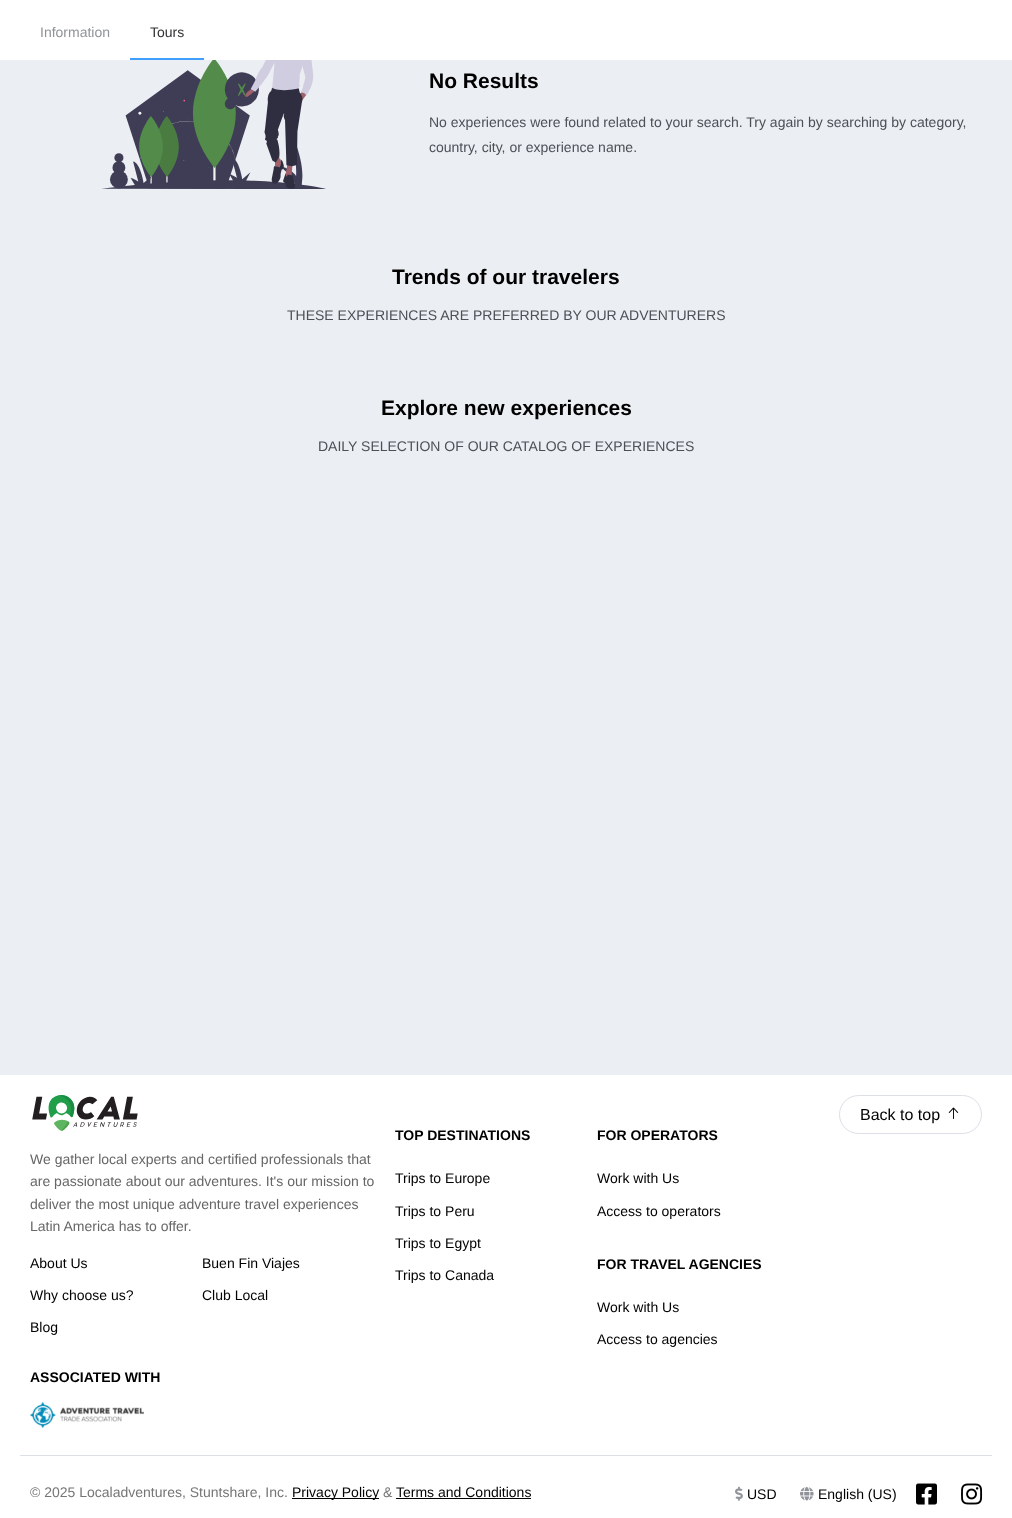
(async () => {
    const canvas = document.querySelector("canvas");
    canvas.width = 1012;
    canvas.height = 1518;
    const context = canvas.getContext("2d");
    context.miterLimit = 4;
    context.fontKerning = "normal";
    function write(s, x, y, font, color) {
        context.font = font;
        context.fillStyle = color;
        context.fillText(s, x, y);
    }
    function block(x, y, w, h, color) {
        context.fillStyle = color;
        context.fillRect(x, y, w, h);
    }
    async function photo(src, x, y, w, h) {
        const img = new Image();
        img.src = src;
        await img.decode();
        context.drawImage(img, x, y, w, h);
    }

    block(0, 0, 1012, 1518, "rgb(235, 238, 242)");
    block(0, 0, 1012, 60, "rgb(255, 255, 255)");
    write("Information", 40, 37, "14px Liberation Sans", "rgb(144, 147, 153)");
    block(130, 58, 74, 2, "rgb(64, 158, 255)");
    write("Tours", 150, 37, "14px Liberation Sans", "rgb(48, 49, 51)");
    await photo("media/1.png", 102, 60, 224, 129);
    write("No Results", 429, 88, "bold 21px Liberation Sans", "rgb(0, 0, 0)");
    write("No experiences were found related to your search. Try again by searching by category,", 429, 127, "14px Liberation Sans", "rgb(76, 79, 86)");
    write("country, city, or experience name.", 429, 152, "14px Liberation Sans", "rgb(76, 79, 86)");
    write("Trends of our travelers", 392, 284, "bold 21px Liberation Sans", "rgb(0, 0, 0)");
    write("THESE EXPERIENCES ARE PREFERRED BY OUR ADVENTURERS", 287, 320, "14px Liberation Sans", "rgb(76, 79, 86)");
    write("Explore new experiences", 381, 415, "bold 21px Liberation Sans", "rgb(0, 0, 0)");
    write("DAILY SELECTION OF OUR CATALOG OF EXPERIENCES", 318, 451, "14px Liberation Sans", "rgb(76, 79, 86)");
    block(0, 1075, 1012, 443, "rgb(255, 255, 255)");
    context.beginPath();
    context.roundRect(839.5, 1095.5, 142, 38, 19);
    context.strokeStyle = "rgb(220, 223, 230)";
    context.stroke();
    write("Back to top", 860, 1120, "16px Liberation Sans", "rgb(0, 0, 0)");
    await photo("media/2.png", 948, 1107, 11, 12);
    await photo("media/3.png", 32, 1095, 106, 36);
    write("We gather local experts and certified professionals that", 30, 1164, "14px Liberation Sans", "rgb(102, 102, 102)");
    write("are passionate about our adventures. It's our mission to", 30, 1186, "14px Liberation Sans", "rgb(102, 102, 102)");
    write("deliver the most unique adventure travel experiences", 30, 1209, "14px Liberation Sans", "rgb(102, 102, 102)");
    write("Latin America has to offer.", 30, 1231, "14px Liberation Sans", "rgb(102, 102, 102)");
    write("About Us", 30, 1268, "14px Liberation Sans", "rgb(0, 0, 0)");
    write("Why choose us?", 30, 1300, "14px Liberation Sans", "rgb(0, 0, 0)");
    write("Blog", 30, 1332, "14px Liberation Sans", "rgb(0, 0, 0)");
    write("Buen Fin Viajes", 202, 1268, "14px Liberation Sans", "rgb(0, 0, 0)");
    write("Club Local", 202, 1300, "14px Liberation Sans", "rgb(0, 0, 0)");
    write("TOP DESTINATIONS", 395, 1140, "bold 14px Liberation Sans", "rgb(0, 0, 0)");
    write("Trips to Europe", 395, 1183, "14px Liberation Sans", "rgb(0, 0, 0)");
    write("Trips to Peru", 395, 1216, "14px Liberation Sans", "rgb(0, 0, 0)");
    write("Trips to Egypt", 395, 1248, "14px Liberation Sans", "rgb(0, 0, 0)");
    write("Trips to Canada", 395, 1280, "14px Liberation Sans", "rgb(0, 0, 0)");
    write("FOR OPERATORS", 597, 1140, "bold 14px Liberation Sans", "rgb(0, 0, 0)");
    write("Work with Us", 597, 1183, "14px Liberation Sans", "rgb(0, 0, 0)");
    write("Access to operators", 597, 1216, "14px Liberation Sans", "rgb(0, 0, 0)");
    write("FOR TRAVEL AGENCIES", 597, 1269, "bold 14px Liberation Sans", "rgb(0, 0, 0)");
    write("Work with Us", 597, 1312, "14px Liberation Sans", "rgb(0, 0, 0)");
    write("Access to agencies", 597, 1344, "14px Liberation Sans", "rgb(0, 0, 0)");
    write("ASSOCIATED WITH", 30, 1382, "bold 14px Liberation Sans", "rgb(0, 0, 0)");
    await photo("media/4.png", 30, 1402, 114, 26);
    block(20, 1455, 972, 1, "rgb(220, 223, 230)");
    write("© 2025 Localadventures, Stuntshare, Inc.", 30, 1497, "14px Liberation Sans", "rgb(117, 117, 117)");
    block(292, 1498, 87, 1, "rgb(0, 0, 0)");
    write("Privacy Policy", 292, 1497, "14px Liberation Sans", "rgb(0, 0, 0)");
    write("&", 383, 1497, "14px Liberation Sans", "rgb(117, 117, 117)");
    write("Terms and Conditions", 396, 1497, "14px Liberation Sans", "rgb(0, 0, 0)");
    block(396, 1498, 135, 1, "rgb(0, 0, 0)");
    await photo("media/5.png", 735, 1486, 8, 15);
    write("USD", 747, 1499, "14px Liberation Sans", "rgb(0, 0, 0)");
    await photo("media/6.png", 800, 1487, 14, 14);
    write("English (US)", 818, 1499, "14px Liberation Sans", "rgb(0, 0, 0)");
    await photo("media/7.png", 916, 1483, 21, 22);
    await photo("media/8.png", 961, 1483, 22, 22);
})();
